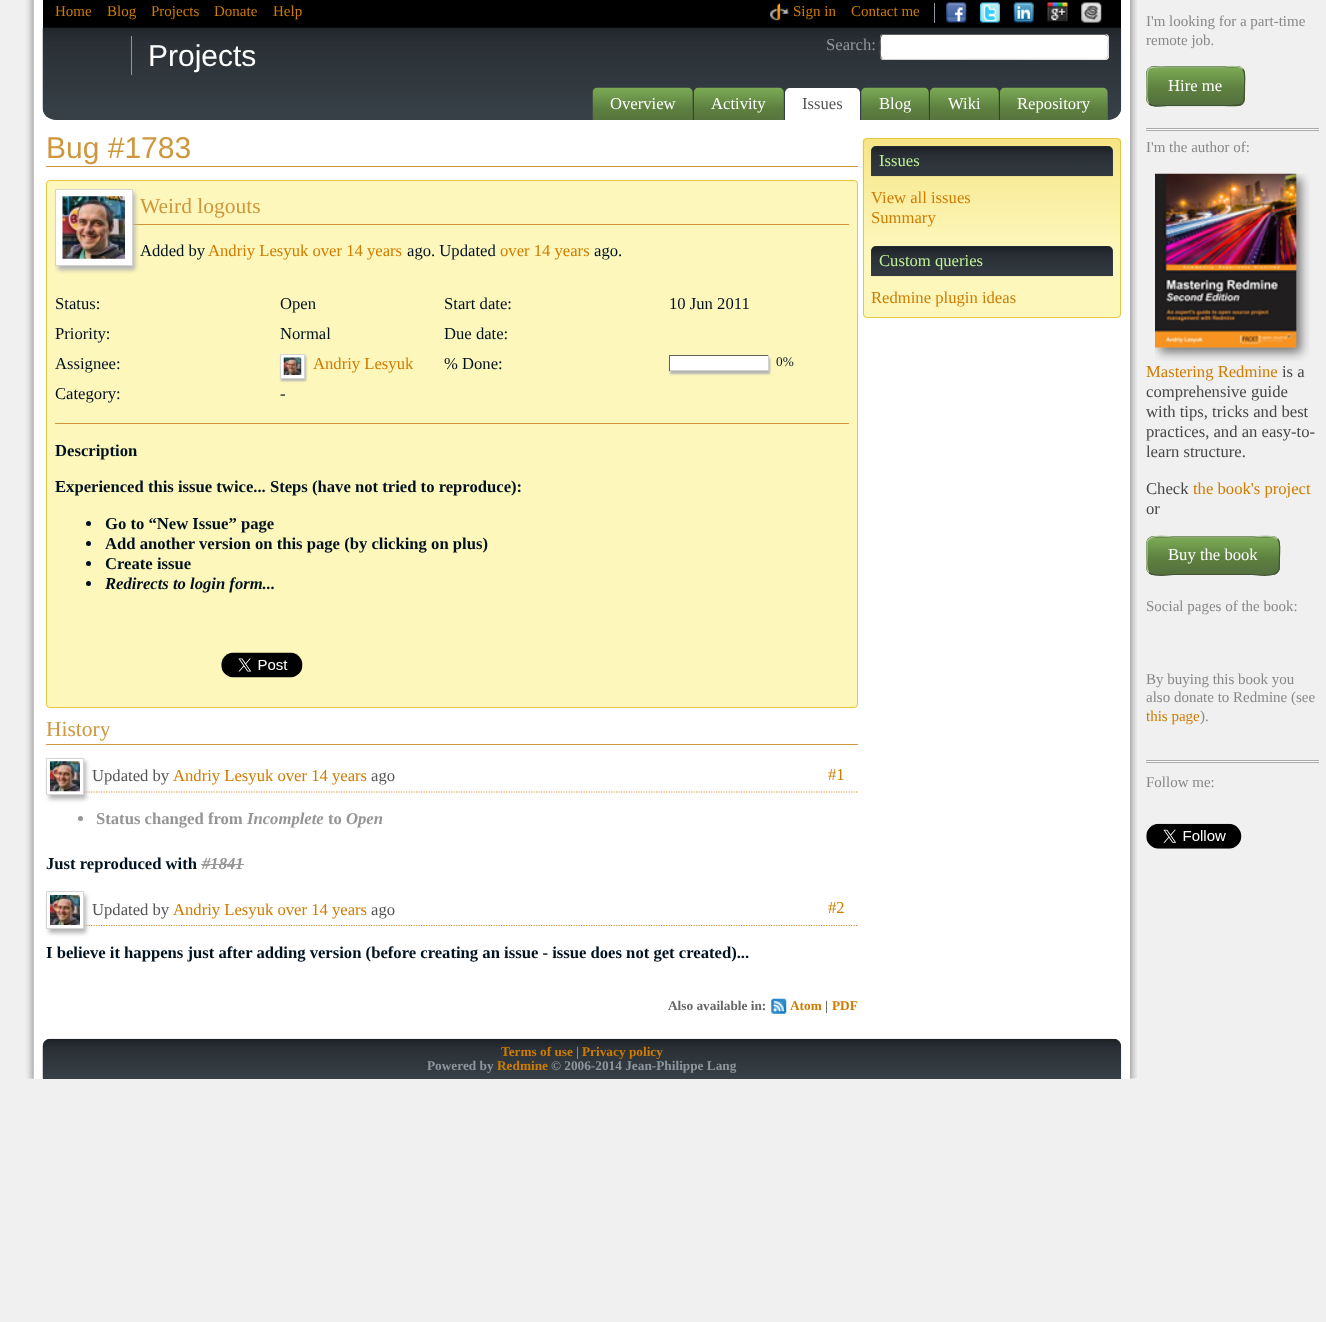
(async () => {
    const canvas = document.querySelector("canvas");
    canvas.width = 1326;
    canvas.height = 1322;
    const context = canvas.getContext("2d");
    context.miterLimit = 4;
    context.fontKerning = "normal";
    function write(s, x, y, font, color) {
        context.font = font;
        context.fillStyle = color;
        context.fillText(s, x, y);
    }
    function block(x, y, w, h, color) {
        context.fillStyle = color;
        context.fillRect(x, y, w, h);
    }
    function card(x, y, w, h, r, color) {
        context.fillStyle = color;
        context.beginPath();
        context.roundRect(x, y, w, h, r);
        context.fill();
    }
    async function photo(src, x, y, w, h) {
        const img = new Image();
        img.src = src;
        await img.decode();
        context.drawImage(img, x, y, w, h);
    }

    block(0, 0, 1326, 1322, "rgb(240, 240, 240)");
    block(25, 0, 1114, 1079, "rgb(255, 255, 255)");
    await photo("media/1.png", 25, 0, 9, 1079);
    await photo("media/2.png", 1130, 0, 9, 1079);
    block(43, 0, 1078, 28, "rgb(0, 0, 0)");
    write("Home", 55, 16, "15px Liberation Serif", "rgb(207, 124, 0)");
    write("Blog", 107, 16, "15px Liberation Serif", "rgb(207, 124, 0)");
    write("Projects", 151, 16, "15px Liberation Serif", "rgb(207, 124, 0)");
    write("Donate", 214, 16, "15px Liberation Serif", "rgb(207, 124, 0)");
    write("Help", 273, 16, "15px Liberation Serif", "rgb(207, 124, 0)");
    await photo("media/3.png", 769, 3, 20, 18);
    write("Sign in", 793, 16, "15px Liberation Serif", "rgb(207, 124, 0)");
    write("Contact me", 851, 16, "15px Liberation Serif", "rgb(207, 124, 0)");
    block(934, 3, 1, 20, "rgb(143, 150, 157)");
    await photo("media/4.png", 946, 2, 21, 21);
    await photo("media/5.png", 980, 2, 20, 21);
    await photo("media/6.png", 1013, 2, 21, 21);
    await photo("media/7.png", 1047, 2, 21, 20);
    await photo("media/8.png", 1081, 2, 21, 21);
    context.fillStyle = "rgb(55, 64, 71)";
    context.beginPath();
    context.roundRect(43, 28, 1078, 92, [0, 0, 13, 13]);
    context.fill();
    await photo("media/9.png", 42, 27, 1080, 91);
    block(131, 36, 1, 39, "rgb(143, 150, 157)");
    write("Projects", 148, 66, "30px Liberation Sans", "rgb(255, 255, 255)");
    write("Search:", 826, 50, "16.65px Liberation Serif", "rgb(143, 150, 157)");
    card(880, 34, 229, 26, 4, "rgb(255, 255, 255)");
    context.beginPath();
    context.moveTo(1107, 35.5);
    context.bezierCurveTo(1109.5, 37.5, 1108, 44.5, 1108, 47);
    context.bezierCurveTo(1108, 49.5, 1109.5, 57.5, 1106, 59);
    context.lineTo(884, 59.5);
    context.lineTo(881.5, 58.5);
    context.strokeStyle = "rgb(210, 210, 210)";
    context.lineWidth = 1.2;
    context.stroke();
    context.beginPath();
    context.moveTo(881.5, 58.5);
    context.bezierCurveTo(879.5, 56.5, 880.5, 49.5, 880.5, 47);
    context.bezierCurveTo(880.5, 44.5, 879, 36, 882.5, 34.5);
    context.lineTo(1105, 34.5);
    context.lineTo(1107, 35.5);
    context.strokeStyle = "rgb(96, 96, 96)";
    context.stroke();
    context.fillStyle = "rgb(83, 106, 63)";
    context.beginPath();
    context.roundRect(593, 88, 100, 32, [5, 5, 0, 0]);
    context.fill();
    await photo("media/10.png", 592, 87, 101, 33);
    write("Overview", 610, 109, "16.65px Liberation Serif", "rgb(255, 255, 255)");
    context.fillStyle = "rgb(83, 106, 63)";
    context.beginPath();
    context.roundRect(694, 88, 90, 32, [5, 5, 0, 0]);
    context.fill();
    await photo("media/11.png", 693, 87, 91, 33);
    write("Activity", 711, 109, "16.65px Liberation Serif", "rgb(255, 255, 255)");
    context.beginPath();
    context.roundRect(785, 88, 75, 32, [5, 5, 0, 0]);
    context.fill();
    write("Issues", 802, 109, "16.65px Liberation Serif", "rgb(85, 85, 85)");
    context.fillStyle = "rgb(83, 106, 63)";
    context.beginPath();
    context.roundRect(861, 88, 68, 32, [5, 5, 0, 0]);
    context.fill();
    await photo("media/12.png", 861, 87, 68, 33);
    write("Blog", 879, 109, "16.65px Liberation Serif", "rgb(255, 255, 255)");
    context.fillStyle = "rgb(83, 106, 63)";
    context.beginPath();
    context.roundRect(930, 88, 69, 32, [5, 5, 0, 0]);
    context.fill();
    await photo("media/13.png", 930, 87, 69, 33);
    write("Wiki", 948, 109, "16.65px Liberation Serif", "rgb(255, 255, 255)");
    context.fillStyle = "rgb(83, 106, 63)";
    context.beginPath();
    context.roundRect(1000, 88, 108, 32, [5, 5, 0, 0]);
    context.fill();
    await photo("media/14.png", 1000, 87, 108, 33);
    write("Repository", 1017, 109, "16.65px Liberation Serif", "rgb(255, 255, 255)");
    block(46, 166, 812, 1, "rgb(207, 151, 61)");
    write("Bug #1783", 46, 158, "30px Liberation Sans", "rgb(207, 151, 61)");
    context.fillStyle = "rgb(253, 247, 187)";
    context.beginPath();
    context.roundRect(46.5, 180.5, 811, 527, 3.5);
    context.fill();
    context.strokeStyle = "rgb(228, 199, 66)";
    context.lineWidth = 1;
    context.stroke();
    block(133, 224, 716, 1, "rgb(207, 151, 61)");
    context.fillStyle = "rgb(180, 180, 180)";
    context.filter = "blur(2px)";
    context.beginPath();
    context.rect(58, 193, 77, 77);
    context.fill();
    context.filter = "none";
    context.fillStyle = "rgb(255, 255, 255)";
    context.beginPath();
    context.rect(55.5, 189.5, 77, 76);
    context.fill();
    context.strokeStyle = "rgb(213, 213, 213)";
    context.stroke();
    await photo("media/15.png", 62, 196, 63, 63);
    write("Weird logouts", 140, 213, "21.5px Liberation Serif", "rgb(207, 151, 61)");
    write("Added by", 140, 256, "16.65px Liberation Serif", "rgb(0, 18, 32)");
    write("Andriy Lesyuk over 14 years", 208, 256, "16.65px Liberation Serif", "rgb(207, 124, 0)");
    write("ago. Updated", 407, 256, "16.65px Liberation Serif", "rgb(0, 18, 32)");
    write("over 14 years", 500, 256, "16.65px Liberation Serif", "rgb(207, 124, 0)");
    write("ago.", 594, 256, "16.65px Liberation Serif", "rgb(0, 18, 32)");
    write("Status:", 55, 309, "16.65px Liberation Serif", "rgb(0, 18, 32)");
    write("Open", 280, 309, "16.65px Liberation Serif", "rgb(0, 18, 32)");
    write("Priority:", 55, 339, "16.65px Liberation Serif", "rgb(0, 18, 32)");
    write("Normal", 280, 339, "16.65px Liberation Serif", "rgb(0, 18, 32)");
    write("Assignee:", 55, 369, "16.65px Liberation Serif", "rgb(0, 18, 32)");
    context.fillStyle = "rgb(180, 180, 180)";
    context.filter = "blur(1px)";
    context.beginPath();
    context.rect(281, 356, 25, 25);
    context.fill();
    context.filter = "none";
    context.fillStyle = "rgb(255, 255, 255)";
    context.beginPath();
    context.rect(280.5, 354.5, 24, 24);
    context.fill();
    context.stroke();
    await photo("media/16.png", 283, 357, 19, 18);
    write("Andriy Lesyuk", 313, 369, "16.65px Liberation Serif", "rgb(207, 124, 0)");
    write("Category:", 55, 399, "16.65px Liberation Serif", "rgb(0, 18, 32)");
    write("-", 280, 399, "16.65px Liberation Serif", "rgb(0, 18, 32)");
    write("Start date:", 444, 309, "16.65px Liberation Serif", "rgb(0, 18, 32)");
    write("10 Jun 2011", 669, 309, "16.65px Liberation Serif", "rgb(0, 18, 32)");
    write("Due date:", 444, 339, "16.65px Liberation Serif", "rgb(0, 18, 32)");
    write("% Done:", 444, 369, "16.65px Liberation Serif", "rgb(0, 18, 32)");
    context.fillStyle = "rgb(180, 180, 180)";
    context.filter = "blur(1px)";
    context.beginPath();
    context.rect(670, 358, 100, 16);
    context.fill();
    context.filter = "none";
    block(669, 355, 100, 1, "rgb(96, 96, 96)");
    block(768, 355, 1, 16, "rgb(210, 210, 210)");
    block(669, 370, 100, 1, "rgb(210, 210, 210)");
    block(669, 355, 1, 16, "rgb(96, 96, 96)");
    block(670, 356, 98, 14, "rgb(255, 255, 255)");
    write("0%", 776, 366, "13.3px Liberation Serif", "rgb(0, 18, 32)");
    block(55, 423, 794, 1, "rgb(207, 151, 61)");
    write("Description", 55, 456, "bold 16.65px Liberation Serif", "rgb(0, 18, 32)");
    write("Experienced this issue twice... Steps (have not tried to reproduce):", 55, 492, "bold 16.65px Liberation Serif", "rgb(0, 18, 32)");
    context.beginPath();
    context.arc(88.5, 523.5, 2.5, 0, Math.PI * 2);
    context.fill();
    write("Go to “New Issue” page", 105, 529, "bold 16.65px Liberation Serif", "rgb(0, 18, 32)");
    context.beginPath();
    context.arc(88.5, 543.5, 2.5, 0, Math.PI * 2);
    context.fill();
    write("Add another version on this page (by clicking on plus)", 105, 549, "bold 16.65px Liberation Serif", "rgb(0, 18, 32)");
    context.beginPath();
    context.arc(88.5, 563.5, 2.5, 0, Math.PI * 2);
    context.fill();
    write("Create issue", 105, 569, "bold 16.65px Liberation Serif", "rgb(0, 18, 32)");
    context.beginPath();
    context.arc(88.5, 583.5, 2.5, 0, Math.PI * 2);
    context.fill();
    write("Redirects to login form...", 105, 589, "italic bold 16.65px Liberation Serif", "rgb(0, 18, 32)");
    await photo("media/17.png", 221, 652, 82, 26);
    block(46, 744, 812, 1, "rgb(207, 151, 61)");
    write("History", 46, 736, "21.5px Liberation Serif", "rgb(207, 151, 61)");
    context.beginPath();
    context.moveTo(46, 792);
    context.lineTo(857.5, 792);
    context.strokeStyle = "rgb(207, 151, 61)";
    context.lineWidth = 1.2;
    context.setLineDash([1.25, 1.25]);
    context.stroke();
    context.fillStyle = "rgb(180, 180, 180)";
    context.filter = "blur(2px)";
    context.beginPath();
    context.rect(49, 761, 37, 38);
    context.fill();
    context.filter = "none";
    context.fillStyle = "rgb(255, 255, 255)";
    context.beginPath();
    context.rect(46.5, 758.5, 37, 36);
    context.fill();
    context.strokeStyle = "rgb(213, 213, 213)";
    context.lineWidth = 1;
    context.setLineDash([]);
    context.stroke();
    await photo("media/18.png", 50, 761, 30, 31);
    write("Updated by", 92, 781, "16.65px Liberation Serif", "rgb(85, 85, 85)");
    write("Andriy Lesyuk over 14 years", 173, 781, "16.65px Liberation Serif", "rgb(207, 124, 0)");
    write("ago", 371, 781, "16.65px Liberation Serif", "rgb(85, 85, 85)");
    write("#1", 828, 780, "16.65px Liberation Serif", "rgb(207, 124, 0)");
    context.fillStyle = "rgb(149, 149, 149)";
    context.beginPath();
    context.arc(80.5, 818.5, 2.5, 0, Math.PI * 2);
    context.fill();
    write("Status changed from", 96, 824, "bold 16.65px Liberation Serif", "rgb(149, 149, 149)");
    write("Incomplete", 247, 824, "italic bold 16.65px Liberation Serif", "rgb(149, 149, 149)");
    write("to", 328, 824, "bold 16.65px Liberation Serif", "rgb(149, 149, 149)");
    write("Open", 346, 824, "italic bold 16.65px Liberation Serif", "rgb(149, 149, 149)");
    write("Just reproduced with", 46, 869, "bold 16.65px Liberation Serif", "rgb(0, 18, 32)");
    write("#1841", 202, 869, "italic bold 16.65px Liberation Serif", "rgb(149, 149, 149)");
    block(201, 864, 43, 1, "rgb(153, 153, 153)");
    context.beginPath();
    context.moveTo(46, 925.5);
    context.lineTo(857.5, 925.5);
    context.strokeStyle = "rgb(207, 151, 61)";
    context.lineWidth = 1.2;
    context.setLineDash([1.25, 1.25]);
    context.stroke();
    context.fillStyle = "rgb(180, 180, 180)";
    context.filter = "blur(2px)";
    context.beginPath();
    context.rect(49, 895, 37, 38);
    context.fill();
    context.filter = "none";
    context.fillStyle = "rgb(255, 255, 255)";
    context.beginPath();
    context.rect(46.5, 891.5, 37, 37);
    context.fill();
    context.strokeStyle = "rgb(213, 213, 213)";
    context.lineWidth = 1;
    context.setLineDash([]);
    context.stroke();
    await photo("media/19.png", 50, 895, 30, 30);
    write("Updated by", 92, 915, "16.65px Liberation Serif", "rgb(85, 85, 85)");
    write("Andriy Lesyuk over 14 years", 173, 915, "16.65px Liberation Serif", "rgb(207, 124, 0)");
    write("ago", 371, 915, "16.65px Liberation Serif", "rgb(85, 85, 85)");
    write("#2", 828, 913, "16.65px Liberation Serif", "rgb(207, 124, 0)");
    write("I believe it happens just after adding version (before creating an issue - issue does not get created)...", 46, 958, "bold 16.65px Liberation Serif", "rgb(0, 18, 32)");
    write("Also available in:", 668, 1010, "bold 13.3px Liberation Serif", "rgb(102, 102, 102)");
    await photo("media/20.png", 771, 998, 16, 16);
    write("Atom", 790, 1010, "bold 13.3px Liberation Serif", "rgb(207, 124, 0)");
    write("|", 825, 1010, "bold 13.3px Liberation Serif", "rgb(102, 102, 102)");
    write("PDF", 832, 1010, "bold 13.3px Liberation Serif", "rgb(207, 124, 0)");
    card(863, 138, 258, 180, 4, "rgb(253, 247, 187)");
    await photo("media/21.png", 862, 138, 260, 126);
    context.beginPath();
    context.roundRect(863.5, 138.5, 257, 179, 3.5);
    context.strokeStyle = "rgb(228, 199, 66)";
    context.stroke();
    context.fillStyle = "rgb(53, 61, 67)";
    context.beginPath();
    context.roundRect(871, 146, 242, 30, [5, 5, 0, 0]);
    context.fill();
    await photo("media/22.png", 871, 146, 242, 31);
    write("Issues", 879, 166, "16.65px Liberation Serif", "rgb(191, 241, 150)");
    write("View all issues", 871, 203, "16.65px Liberation Serif", "rgb(207, 124, 0)");
    write("Summary", 871, 223, "16.65px Liberation Serif", "rgb(207, 124, 0)");
    context.fillStyle = "rgb(53, 61, 67)";
    context.beginPath();
    context.roundRect(871, 246, 242, 30, [5, 5, 0, 0]);
    context.fill();
    await photo("media/23.png", 871, 246, 242, 31);
    write("Custom queries", 879, 266, "16.65px Liberation Serif", "rgb(191, 241, 150)");
    write("Redmine plugin ideas", 871, 303, "16.65px Liberation Serif", "rgb(207, 124, 0)");
    context.fillStyle = "rgb(53, 61, 67)";
    context.beginPath();
    context.roundRect(43, 1039, 1078, 40, [8, 8, 0, 0]);
    context.fill();
    await photo("media/24.png", 42, 1038, 1080, 41);
    write("Terms of use", 501, 1056, "bold 13.3px Liberation Serif", "rgb(207, 124, 0)");
    write("|", 576, 1056, "bold 13.3px Liberation Serif", "rgb(143, 150, 157)");
    write("Privacy policy", 582, 1056, "bold 13.3px Liberation Serif", "rgb(207, 124, 0)");
    write("Powered by", 427, 1070, "bold 13.3px Liberation Serif", "rgb(143, 150, 157)");
    write("Redmine", 497, 1070, "bold 13.3px Liberation Serif", "rgb(207, 124, 0)");
    write("© 2006-2014 Jean-Philippe Lang", 551, 1070, "bold 13.3px Liberation Serif", "rgb(143, 150, 157)");
    write("I'm looking for a part-time", 1146, 26, "15px Liberation Serif", "rgb(136, 136, 136)");
    write("remote job.", 1146, 45, "15px Liberation Serif", "rgb(136, 136, 136)");
    card(1146, 66, 99, 40, 8, "rgb(83, 106, 63)");
    await photo("media/25.png", 1146, 67, 99, 40);
    context.beginPath();
    context.moveTo(1242.5, 69);
    context.bezierCurveTo(1246, 72.5, 1244.5, 82, 1244.5, 86);
    context.bezierCurveTo(1244.5, 107.5, 1245.5, 105.5, 1223.5, 105.5);
    context.lineTo(1167.5, 105.5);
    context.bezierCurveTo(1165, 105.5, 1153, 108, 1149, 103.5);
    context.strokeStyle = "rgb(67, 83, 53)";
    context.lineWidth = 1.2;
    context.stroke();
    context.beginPath();
    context.moveTo(1149, 103.5);
    context.bezierCurveTo(1145.5, 100, 1147, 90.5, 1147, 86);
    context.bezierCurveTo(1147, 65, 1145.5, 67, 1167.5, 67);
    context.lineTo(1223.5, 67);
    context.bezierCurveTo(1226.5, 67, 1238, 64.5, 1242.5, 69);
    context.strokeStyle = "rgb(175, 198, 156)";
    context.stroke();
    write("Hire me", 1168, 91, "16.65px Liberation Serif", "rgb(255, 255, 255)");
    block(1146, 128, 173, 3, "rgb(171, 171, 171)");
    block(1146, 129, 173, 1, "rgb(254, 254, 254)");
    write("I'm the author of:", 1146, 152, "15px Liberation Serif", "rgb(136, 136, 136)");
    await photo("media/26.png", 1155, 173, 155, 188);
    write("Mastering Redmine", 1146, 377, "16.65px Liberation Serif", "rgb(207, 124, 0)");
    write("is a", 1282, 377, "16.65px Liberation Serif", "rgb(72, 72, 72)");
    write("comprehensive guide", 1146, 397, "16.65px Liberation Serif", "rgb(72, 72, 72)");
    write("with tips, tricks and best", 1146, 417, "16.65px Liberation Serif", "rgb(72, 72, 72)");
    write("practices, and an easy-to-", 1146, 437, "16.65px Liberation Serif", "rgb(72, 72, 72)");
    write("learn structure.", 1146, 457, "16.65px Liberation Serif", "rgb(72, 72, 72)");
    write("Check", 1146, 494, "16.65px Liberation Serif", "rgb(72, 72, 72)");
    write("the book's project", 1193, 494, "16.65px Liberation Serif", "rgb(207, 124, 0)");
    write("or", 1146, 514, "16.65px Liberation Serif", "rgb(72, 72, 72)");
    card(1146, 536, 134, 39, 8, "rgb(83, 106, 63)");
    await photo("media/27.png", 1146, 537, 134, 38);
    context.beginPath();
    context.moveTo(1277.5, 539);
    context.bezierCurveTo(1281, 542.5, 1279.5, 551.5, 1279.5, 555.5);
    context.lineTo(1279, 569);
    context.bezierCurveTo(1277, 579, 1255.5, 574.5, 1252.5, 574.5);
    context.lineTo(1173.5, 574.5);
    context.bezierCurveTo(1171, 574.5, 1154, 577.5, 1149, 572.5);
    context.strokeStyle = "rgb(67, 83, 53)";
    context.stroke();
    context.beginPath();
    context.moveTo(1149, 572.5);
    context.bezierCurveTo(1145.5, 569, 1147, 560, 1147, 555.5);
    context.lineTo(1147, 542.5);
    context.bezierCurveTo(1149, 532.5, 1171, 537, 1173.5, 537);
    context.lineTo(1252.5, 537);
    context.bezierCurveTo(1255, 537, 1272.5, 534, 1277.5, 539);
    context.strokeStyle = "rgb(175, 198, 156)";
    context.stroke();
    write("Buy the book", 1168, 560, "16.65px Liberation Serif", "rgb(255, 255, 255)");
    write("Social pages of the book:", 1146, 611, "15px Liberation Serif", "rgb(136, 136, 136)");
    write("By buying this book you", 1146, 684, "15px Liberation Serif", "rgb(136, 136, 136)");
    write("also donate to Redmine (see", 1146, 702, "15px Liberation Serif", "rgb(136, 136, 136)");
    write("this page", 1146, 721, "15px Liberation Serif", "rgb(207, 124, 0)");
    write(").", 1200, 721, "15px Liberation Serif", "rgb(136, 136, 136)");
    block(1146, 760, 173, 3, "rgb(171, 171, 171)");
    block(1146, 761, 173, 1, "rgb(254, 254, 254)");
    write("Follow me:", 1146, 787, "15px Liberation Serif", "rgb(136, 136, 136)");
    await photo("media/28.png", 1146, 823, 96, 26);
})();
